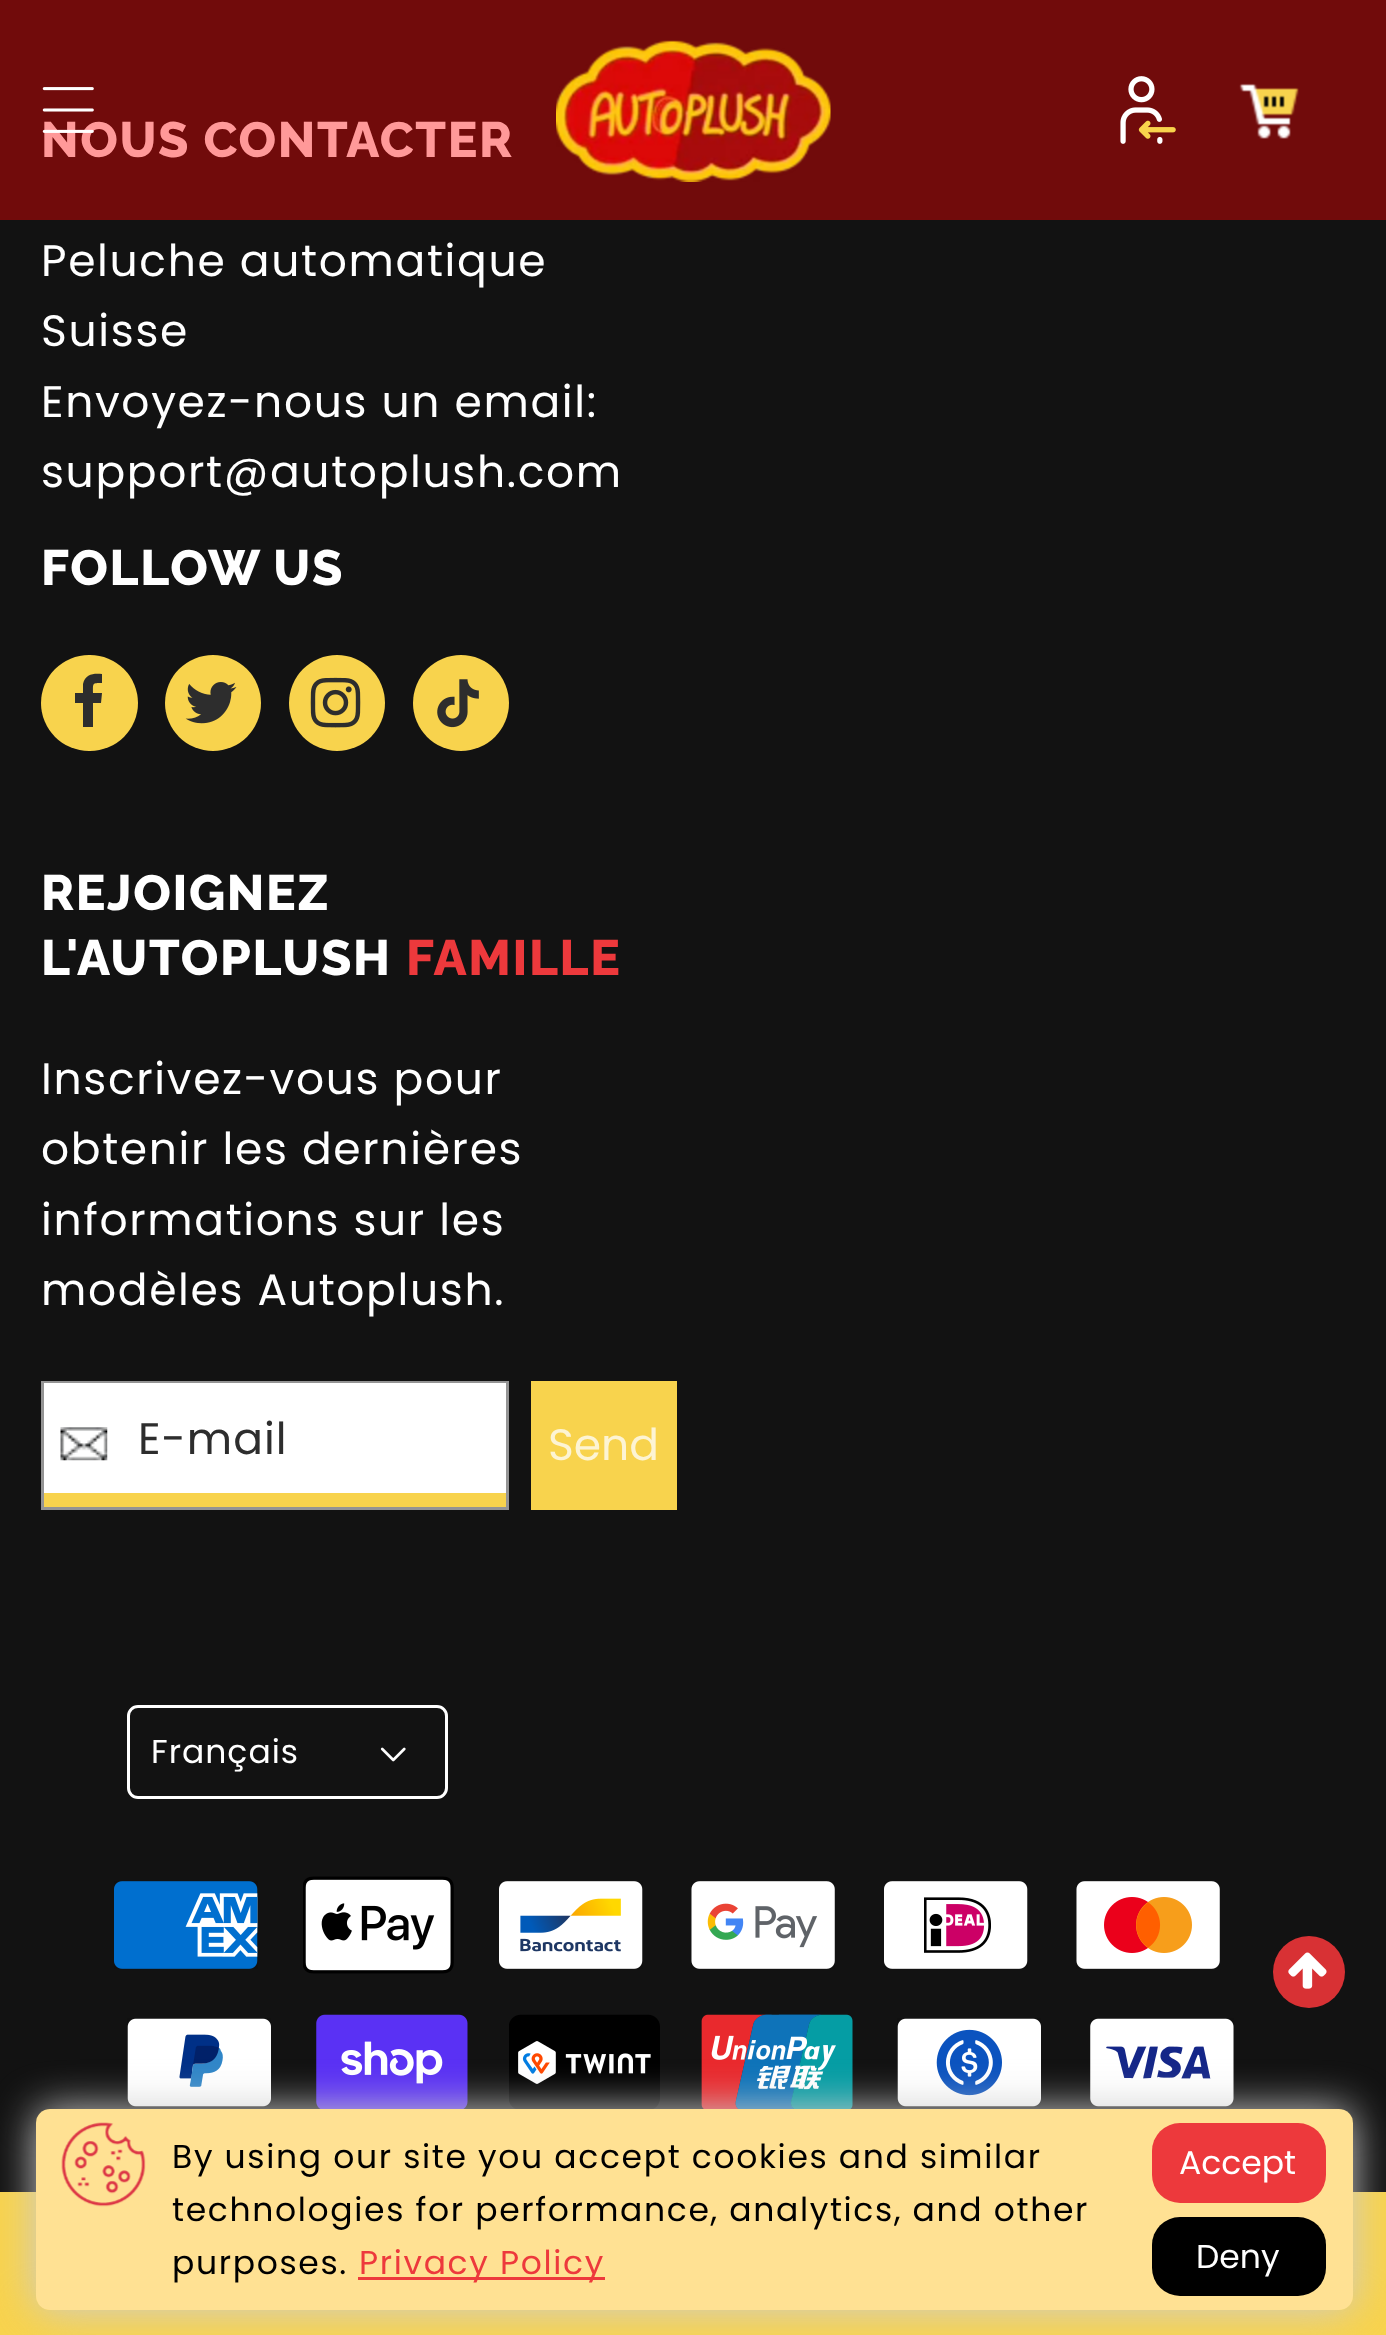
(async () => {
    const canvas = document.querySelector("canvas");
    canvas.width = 1386;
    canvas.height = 2335;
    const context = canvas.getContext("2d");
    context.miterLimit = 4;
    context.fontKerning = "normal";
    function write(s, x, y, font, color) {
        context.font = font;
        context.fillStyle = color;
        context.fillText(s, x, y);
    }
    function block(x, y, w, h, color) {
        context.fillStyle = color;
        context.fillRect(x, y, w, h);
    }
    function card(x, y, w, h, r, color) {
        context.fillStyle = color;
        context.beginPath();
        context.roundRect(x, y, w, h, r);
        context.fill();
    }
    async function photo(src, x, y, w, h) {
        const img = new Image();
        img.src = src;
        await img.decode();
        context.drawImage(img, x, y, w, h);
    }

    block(0, 0, 1386, 2335, "rgb(18, 18, 18)");
    block(0, 0, 1386, 220, "rgb(113, 11, 11)");
    context.letterSpacing = "1.65px";
    write("NOUS CONTACTER", 41, 157, "800 49.5px Raleway", "rgb(255, 153, 153)");
    await photo("media/1.png", 42, 87, 52, 46);
    await photo("media/2.png", 556, 40, 275, 142);
    await photo("media/3.png", 1120, 76, 56, 68);
    await photo("media/4.png", 1239, 83, 60, 56);
    write("Peluche automatique", 41, 276, "44px Poppins", "rgb(255, 255, 255)");
    write("Suisse", 41, 346, "44px Poppins", "rgb(255, 255, 255)");
    write("Envoyez-nous un email:", 41, 417, "44px Poppins", "rgb(255, 255, 255)");
    write("support@autoplush.com", 41, 487, "44px Poppins", "rgb(255, 255, 255)");
    write("FOLLOW US", 41, 585, "800 49.5px Raleway", "rgb(255, 255, 255)");
    card(41, 655, 97, 96, 48, "rgb(248, 211, 77)");
    context.fillStyle = "rgb(45, 45, 45)";
    context.beginPath();
    context.moveTo(102, 674);
    context.lineTo(102, 683);
    context.bezierCurveTo(92, 683, 93, 683, 93, 693);
    context.lineTo(102, 693);
    context.lineTo(101, 703);
    context.lineTo(93, 703);
    context.lineTo(93, 727);
    context.lineTo(83, 727);
    context.lineTo(83, 703);
    context.lineTo(75, 703);
    context.lineTo(75, 693);
    context.lineTo(83, 693);
    context.lineTo(83, 684);
    context.bezierCurveTo(85, 674, 94, 673, 102, 674);
    context.closePath();
    context.fill();
    context.fillStyle = "rgb(248, 211, 77)";
    context.beginPath();
    context.arc(213, 703, 48, 0, Math.PI * 2);
    context.fill();
    await photo("media/5.png", 185, 682, 52, 42);
    context.beginPath();
    context.arc(337, 703, 48, 0, Math.PI * 2);
    context.fill();
    await photo("media/6.png", 310, 677, 51, 51);
    context.beginPath();
    context.arc(461, 703, 48, 0, Math.PI * 2);
    context.fill();
    await photo("media/7.png", 437, 679, 42, 49);
    write("REJOIGNEZ", 41, 910, "800 49.5px Raleway", "rgb(255, 255, 255)");
    write("L'AUTOPLUSH", 41, 975, "800 49.5px Raleway", "rgb(255, 255, 255)");
    write("FAMILLE", 406, 975, "800 49.5px Raleway", "rgb(237, 57, 60)");
    write("Inscrivez-vous pour", 41, 1094, "44px Poppins", "rgb(255, 255, 255)");
    write("obtenir les dernières", 41, 1164, "44px Poppins", "rgb(255, 255, 255)");
    write("informations sur les", 41, 1235, "44px Poppins", "rgb(255, 255, 255)");
    write("modèles Autoplush.", 41, 1305, "44px Poppins", "rgb(255, 255, 255)");
    block(44, 1383, 462, 110, "rgb(255, 255, 255)");
    await photo("media/8.png", 60, 1427, 48, 34);
    block(44, 1493, 462, 14, "rgb(248, 211, 77)");
    context.strokeStyle = "rgba(255, 255, 255, 0.55)";
    context.lineWidth = 3;
    context.strokeRect(42.5, 1382.5, 465, 126);
    context.letterSpacing = "1px";
    write("E-mail", 138, 1454, "44px Poppins", "rgb(45, 45, 45)");
    block(531, 1381, 146, 129, "rgb(248, 211, 77)");
    context.letterSpacing = "0px";
    write("Send", 548, 1460, "44px Poppins", "rgb(253, 244, 211)");
    await photo("media/9.png", 380, 1747, 26, 15);
    context.beginPath();
    context.roundRect(128.5, 1706.5, 318, 91, 9.5);
    context.strokeStyle = "rgb(255, 255, 255)";
    context.stroke();
    context.letterSpacing = "1px";
    write("Français", 151, 1763, "33px Poppins", "rgb(255, 255, 255)");
    await photo("media/10.png", 114, 1881, 144, 88);
    await photo("media/11.png", 303, 1876, 151, 98);
    await photo("media/12.png", 499, 1881, 144, 88);
    await photo("media/13.png", 691, 1881, 144, 88);
    await photo("media/14.png", 884, 1881, 144, 88);
    await photo("media/15.png", 1076, 1881, 144, 88);
    await photo("media/16.png", 127, 2018, 144, 89);
    await photo("media/17.png", 316, 2014, 152, 95);
    await photo("media/18.png", 509, 2014, 151, 95);
    await photo("media/19.png", 701, 2014, 152, 95);
    await photo("media/20.png", 897, 2018, 144, 89);
    await photo("media/21.png", 1090, 2018, 144, 89);
    block(0, 2192, 1386, 143, "rgb(248, 211, 77)");
    context.fillStyle = "rgb(216, 49, 52)";
    context.beginPath();
    context.arc(1309, 1972, 36, 0, Math.PI * 2);
    context.fill();
    await photo("media/22.png", 1288, 1952, 39, 37);
    context.save();
    context.beginPath();
    context.moveTo(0, 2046);
    context.lineTo(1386, 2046);
    context.lineTo(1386, 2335);
    context.lineTo(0, 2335);
    context.closePath();
    context.moveTo(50, 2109);
    context.lineTo(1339, 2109);
    context.bezierCurveTo(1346.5, 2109, 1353, 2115.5, 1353, 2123);
    context.lineTo(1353, 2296);
    context.bezierCurveTo(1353, 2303.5, 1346.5, 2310, 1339, 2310);
    context.lineTo(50, 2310);
    context.bezierCurveTo(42.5, 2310, 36, 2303.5, 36, 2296);
    context.lineTo(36, 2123);
    context.bezierCurveTo(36, 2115.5, 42.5, 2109, 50, 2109);
    context.closePath();
    context.clip("evenodd");
    context.fillStyle = "rgb(204, 204, 204)";
    context.filter = "blur(20.5px)";
    context.beginPath();
    context.roundRect(36, 2109, 1317, 201, 14);
    context.fill();
    context.filter = "none";
    context.restore();
    card(36, 2109, 1317, 201, 14, "rgb(255, 225, 147)");
    await photo("media/23.png", 61, 2122, 85, 85);
    context.letterSpacing = "1.65px";
    write("By using our site you accept cookies and similar", 172, 2168, "33px Poppins", "rgb(0, 0, 0)");
    write("technologies for performance, analytics, and other", 172, 2221, "33px Poppins", "rgb(0, 0, 0)");
    write("purposes.", 172, 2274, "33px Poppins", "rgb(0, 0, 0)");
    block(358, 2277, 247, 3, "rgb(237, 57, 60)");
    write("Privacy Policy", 359, 2274, "33px Poppins", "rgb(237, 57, 60)");
    card(1152, 2123, 174, 80, 28, "rgb(237, 57, 60)");
    context.letterSpacing = "0px";
    write("Accept", 1179, 2174, "33px Poppins", "rgb(255, 255, 255)");
    card(1152, 2217, 174, 79, 28, "rgb(0, 0, 0)");
    write("Deny", 1196, 2268, "33px Poppins", "rgb(255, 255, 255)");
})();
